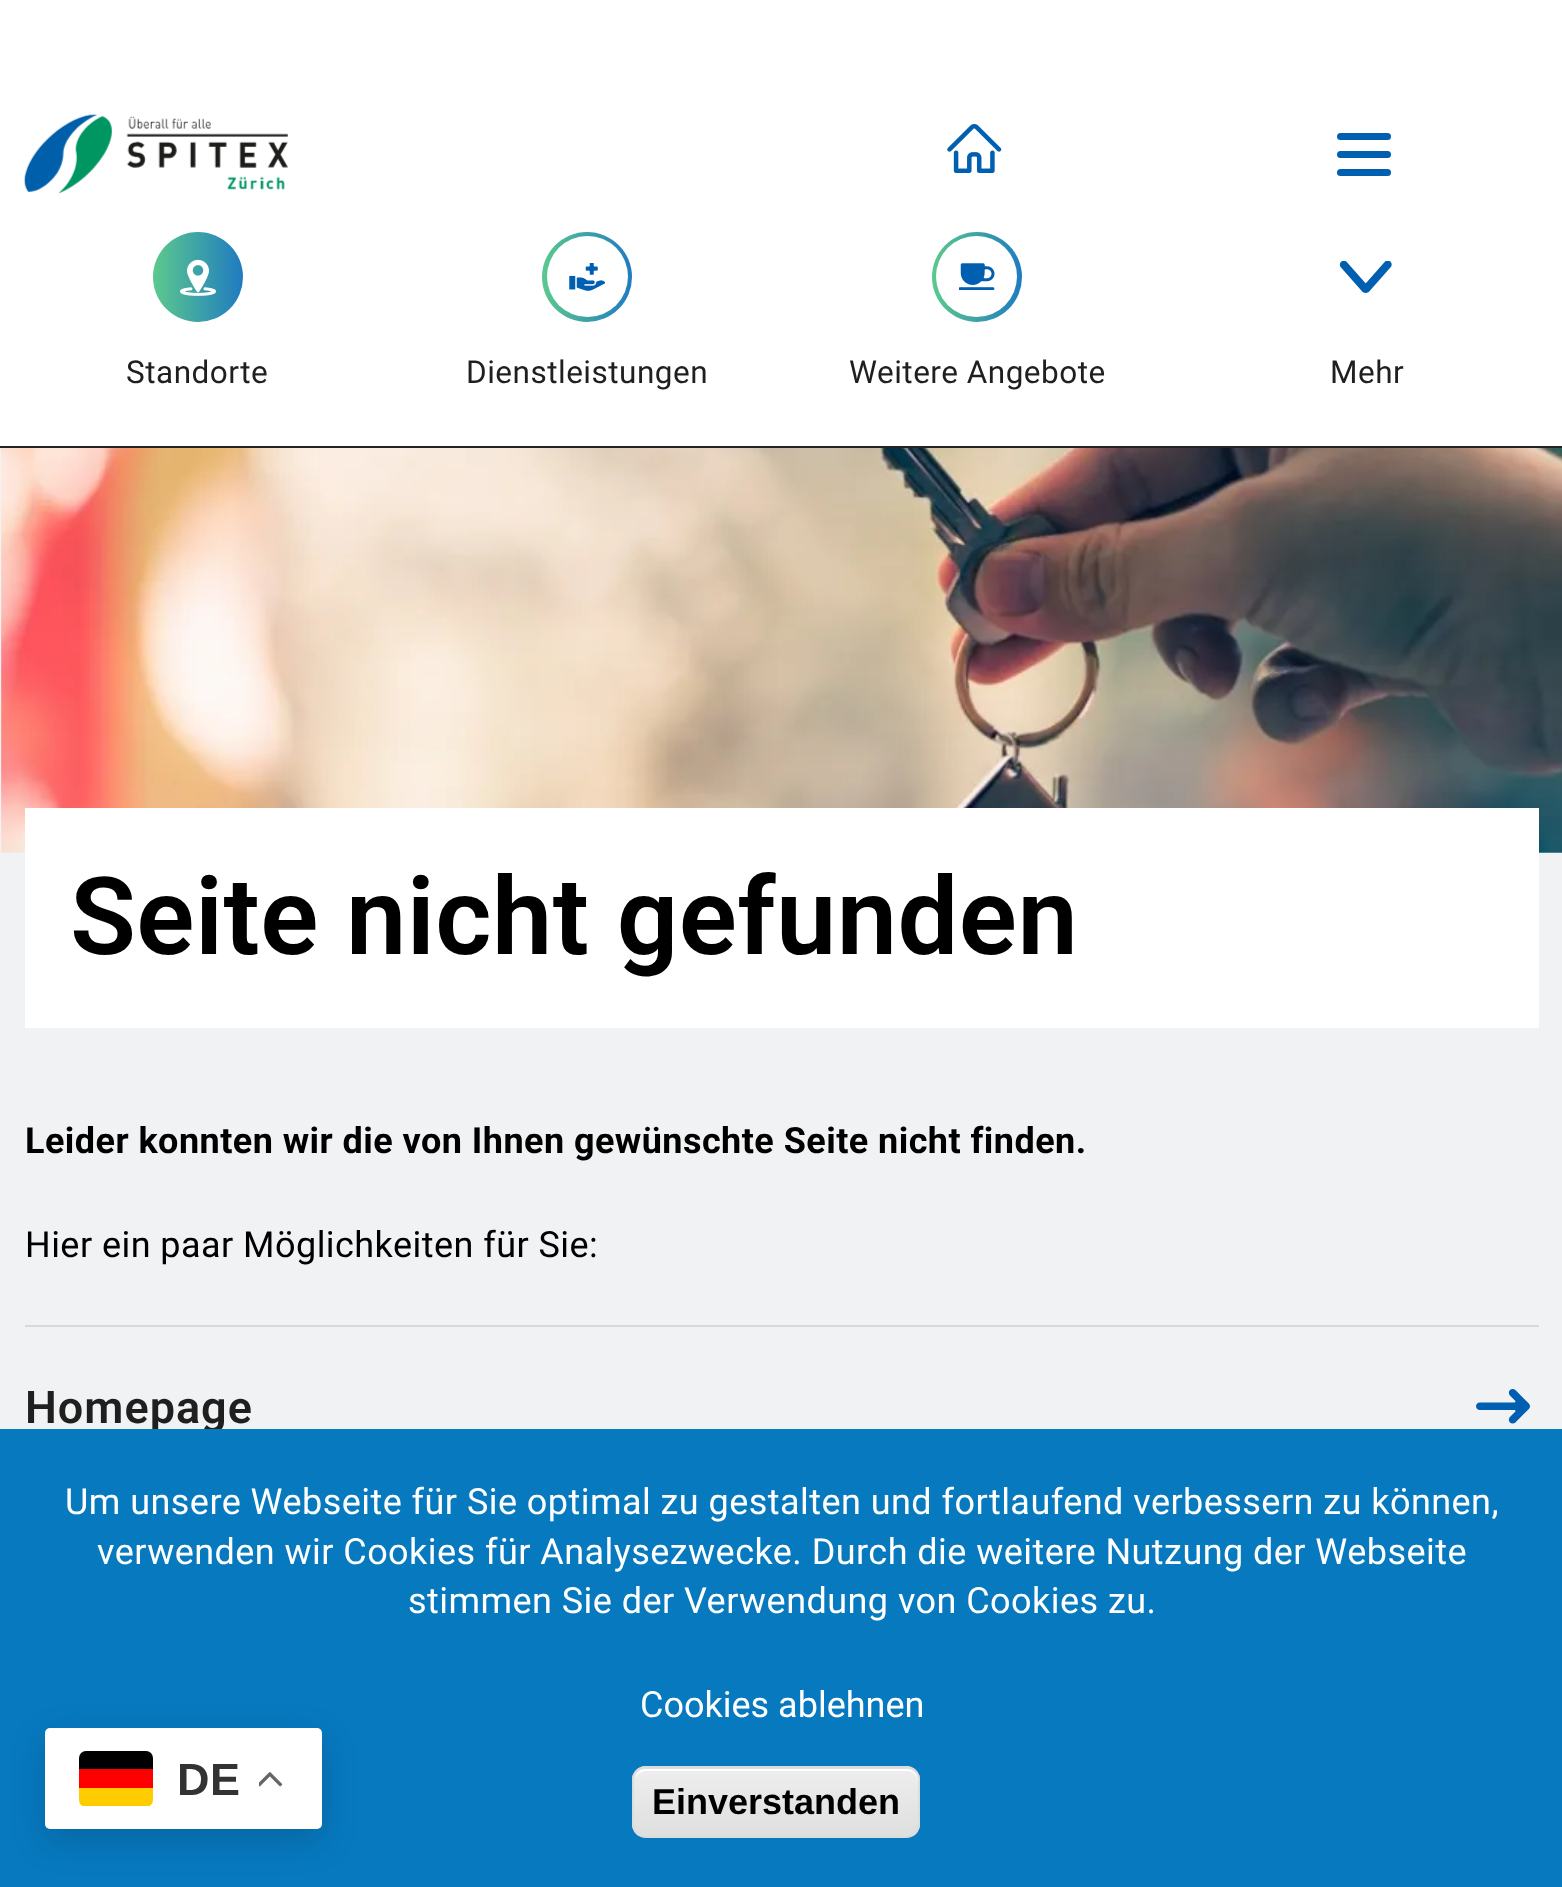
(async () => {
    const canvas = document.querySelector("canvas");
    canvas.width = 1562;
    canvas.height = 1887;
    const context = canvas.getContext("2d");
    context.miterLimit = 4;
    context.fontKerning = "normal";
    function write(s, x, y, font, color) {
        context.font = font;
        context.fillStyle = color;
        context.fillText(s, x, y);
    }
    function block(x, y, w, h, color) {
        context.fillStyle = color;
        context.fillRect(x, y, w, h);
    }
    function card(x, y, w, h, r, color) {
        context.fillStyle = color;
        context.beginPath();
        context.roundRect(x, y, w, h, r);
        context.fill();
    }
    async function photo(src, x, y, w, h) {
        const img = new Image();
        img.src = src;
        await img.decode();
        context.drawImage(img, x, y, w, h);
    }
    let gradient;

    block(0, 0, 1562, 1887, "rgb(241, 242, 244)");
    block(0, 0, 1562, 446, "rgb(255, 255, 255)");
    block(0, 446, 1562, 2, "rgb(31, 35, 38)");
    await photo("media/1.png", 24, 114, 264, 80);
    await photo("media/2.png", 947, 124, 55, 49);
    card(1337, 133, 54, 7, 3.5, "rgb(0, 95, 176)");
    card(1337, 151, 54, 7, 3.5, "rgb(0, 95, 176)");
    card(1337, 169, 54, 7, 3.5, "rgb(0, 95, 176)");
    gradient = context.createLinearGradient(243, 277, 153, 277);
    gradient.addColorStop(0, "rgb(31, 123, 193)");
    gradient.addColorStop(1, "rgb(92, 201, 141)");
    context.fillStyle = gradient;
    context.beginPath();
    context.arc(198, 277, 45, 0, Math.PI * 2);
    context.fill();
    await photo("media/3.png", 180, 259, 36, 37);
    context.letterSpacing = "0.5px";
    write("Standorte", 126, 383, "31.5px Roboto", "rgb(31, 31, 31)");
    gradient = context.createLinearGradient(632, 277, 542, 277);
    gradient.addColorStop(0, "rgb(31, 123, 193)");
    gradient.addColorStop(1, "rgb(92, 201, 141)");
    context.fillStyle = gradient;
    context.beginPath();
    context.arc(587, 277, 45, 0, Math.PI * 2);
    context.fill();
    context.fillStyle = "rgb(255, 255, 255)";
    context.beginPath();
    context.arc(587.5, 276.5, 40.5, 0, Math.PI * 2);
    context.fill();
    await photo("media/4.png", 569, 263, 36, 28);
    write("Dienstleistungen", 466, 383, "31.5px Roboto", "rgb(31, 31, 31)");
    gradient = context.createLinearGradient(1022, 277, 932, 277);
    gradient.addColorStop(0, "rgb(31, 123, 193)");
    gradient.addColorStop(1, "rgb(92, 201, 141)");
    context.fillStyle = gradient;
    context.beginPath();
    context.arc(977, 277, 45, 0, Math.PI * 2);
    context.fill();
    context.fillStyle = "rgb(255, 255, 255)";
    context.beginPath();
    context.arc(976.5, 276.5, 40.5, 0, Math.PI * 2);
    context.fill();
    await photo("media/5.png", 959, 263, 36, 27);
    write("Weitere Angebote", 849, 383, "31.5px Roboto", "rgb(31, 31, 31)");
    await photo("media/6.png", 1339, 261, 53, 32);
    write("Mehr", 1330, 383, "31.5px Roboto", "rgb(31, 31, 31)");
    await photo("media/7.png", 1, 448, 1561, 405);
    block(25, 808, 1514, 220, "rgb(255, 255, 255)");
    context.letterSpacing = "0.45px";
    write("Seite nicht gefunden", 70, 954, "600 108px Roboto", "rgb(0, 0, 0)");
    write("Leider konnten wir die von Ihnen gewünschte Seite nicht finden.", 25, 1153, "bold 36px Roboto", "rgb(0, 0, 0)");
    write("Hier ein paar Möglichkeiten für Sie:", 25, 1257, "36px Roboto", "rgb(0, 0, 0)");
    block(25, 1325, 1514, 2, "rgb(216, 216, 216)");
    context.letterSpacing = "1px";
    write("Homepage", 25, 1423, "600 45px Roboto", "rgb(31, 31, 31)");
    await photo("media/8.png", 1476, 1389, 54, 35);
    block(0, 1429, 1562, 458, "rgb(7, 121, 191)");
    context.fillStyle = "rgba(0, 0, 0, 0.15)";
    context.filter = "blur(17px)";
    context.beginPath();
    context.roundRect(45, 1739, 277, 102, 5);
    context.fill();
    context.filter = "none";
    card(45, 1728, 277, 101, 5, "rgb(255, 255, 255)");
    context.save();
    context.beginPath();
    context.roundRect(79, 1751, 74, 56, 7);
    context.clip();
    block(79, 1788, 74, 18, "rgb(255, 204, 0)");
    context.restore();
    context.fillStyle = "rgb(0, 0, 0)";
    context.beginPath();
    context.roundRect(79, 1751, 74, 18, [7, 7, 0, 0]);
    context.fill();
    block(79, 1769, 74, 19, "rgb(255, 0, 0)");
    context.letterSpacing = "0.45px";
    write("DE", 177, 1795, "bold 45px Liberation Sans", "rgb(51, 51, 51)");
    await photo("media/9.png", 259, 1772, 24, 15);
    write("Um unsere Webseite für Sie optimal zu gestalten und fortlaufend verbessern zu können,", 65, 1514, "36px Roboto", "rgb(255, 255, 255)");
    write("verwenden wir Cookies für Analysezwecke. Durch die weitere Nutzung der Webseite", 97, 1564, "36px Roboto", "rgb(255, 255, 255)");
    write("stimmen Sie der Verwendung von Cookies zu.", 408, 1613, "36px Roboto", "rgb(255, 255, 255)");
    context.letterSpacing = "0px";
    write("Cookies ablehnen", 640, 1717, "36px Roboto", "rgb(255, 255, 255)");
    context.save();
    context.beginPath();
    context.roundRect(632, 1766, 288, 72, 14);
    context.clip();
    gradient = context.createLinearGradient(776, 1701, 776, 1769);
    gradient.addColorStop(0.05, "rgb(237, 237, 237)");
    gradient.addColorStop(1, "rgb(223, 223, 223)");
    context.fillStyle = gradient;
    context.fillRect(632, 1766, 288, 3);
    gradient = context.createLinearGradient(776, 1769, 776, 1836);
    gradient.addColorStop(0.05, "rgb(237, 237, 237)");
    gradient.addColorStop(1, "rgb(223, 223, 223)");
    context.fillStyle = gradient;
    context.fillRect(632, 1769, 288, 67);
    context.restore();
    context.beginPath();
    context.moveTo(646, 1771);
    context.lineTo(907, 1771);
    context.bezierCurveTo(913, 1771, 918, 1776, 918, 1782);
    context.lineTo(918, 1780);
    context.bezierCurveTo(918, 1774, 913, 1769, 907, 1769);
    context.lineTo(646, 1769);
    context.bezierCurveTo(641, 1769, 637, 1772, 635, 1777);
    context.bezierCurveTo(638, 1774, 642, 1771, 646, 1771);
    context.closePath();
    context.fill();
    context.beginPath();
    context.roundRect(633, 1767, 286, 70, 13);
    context.strokeStyle = "rgb(220, 220, 220)";
    context.lineWidth = 2;
    context.stroke();
    write("Einverstanden", 652, 1814, "bold 36px Liberation Sans", "rgb(0, 0, 0)");
})();
